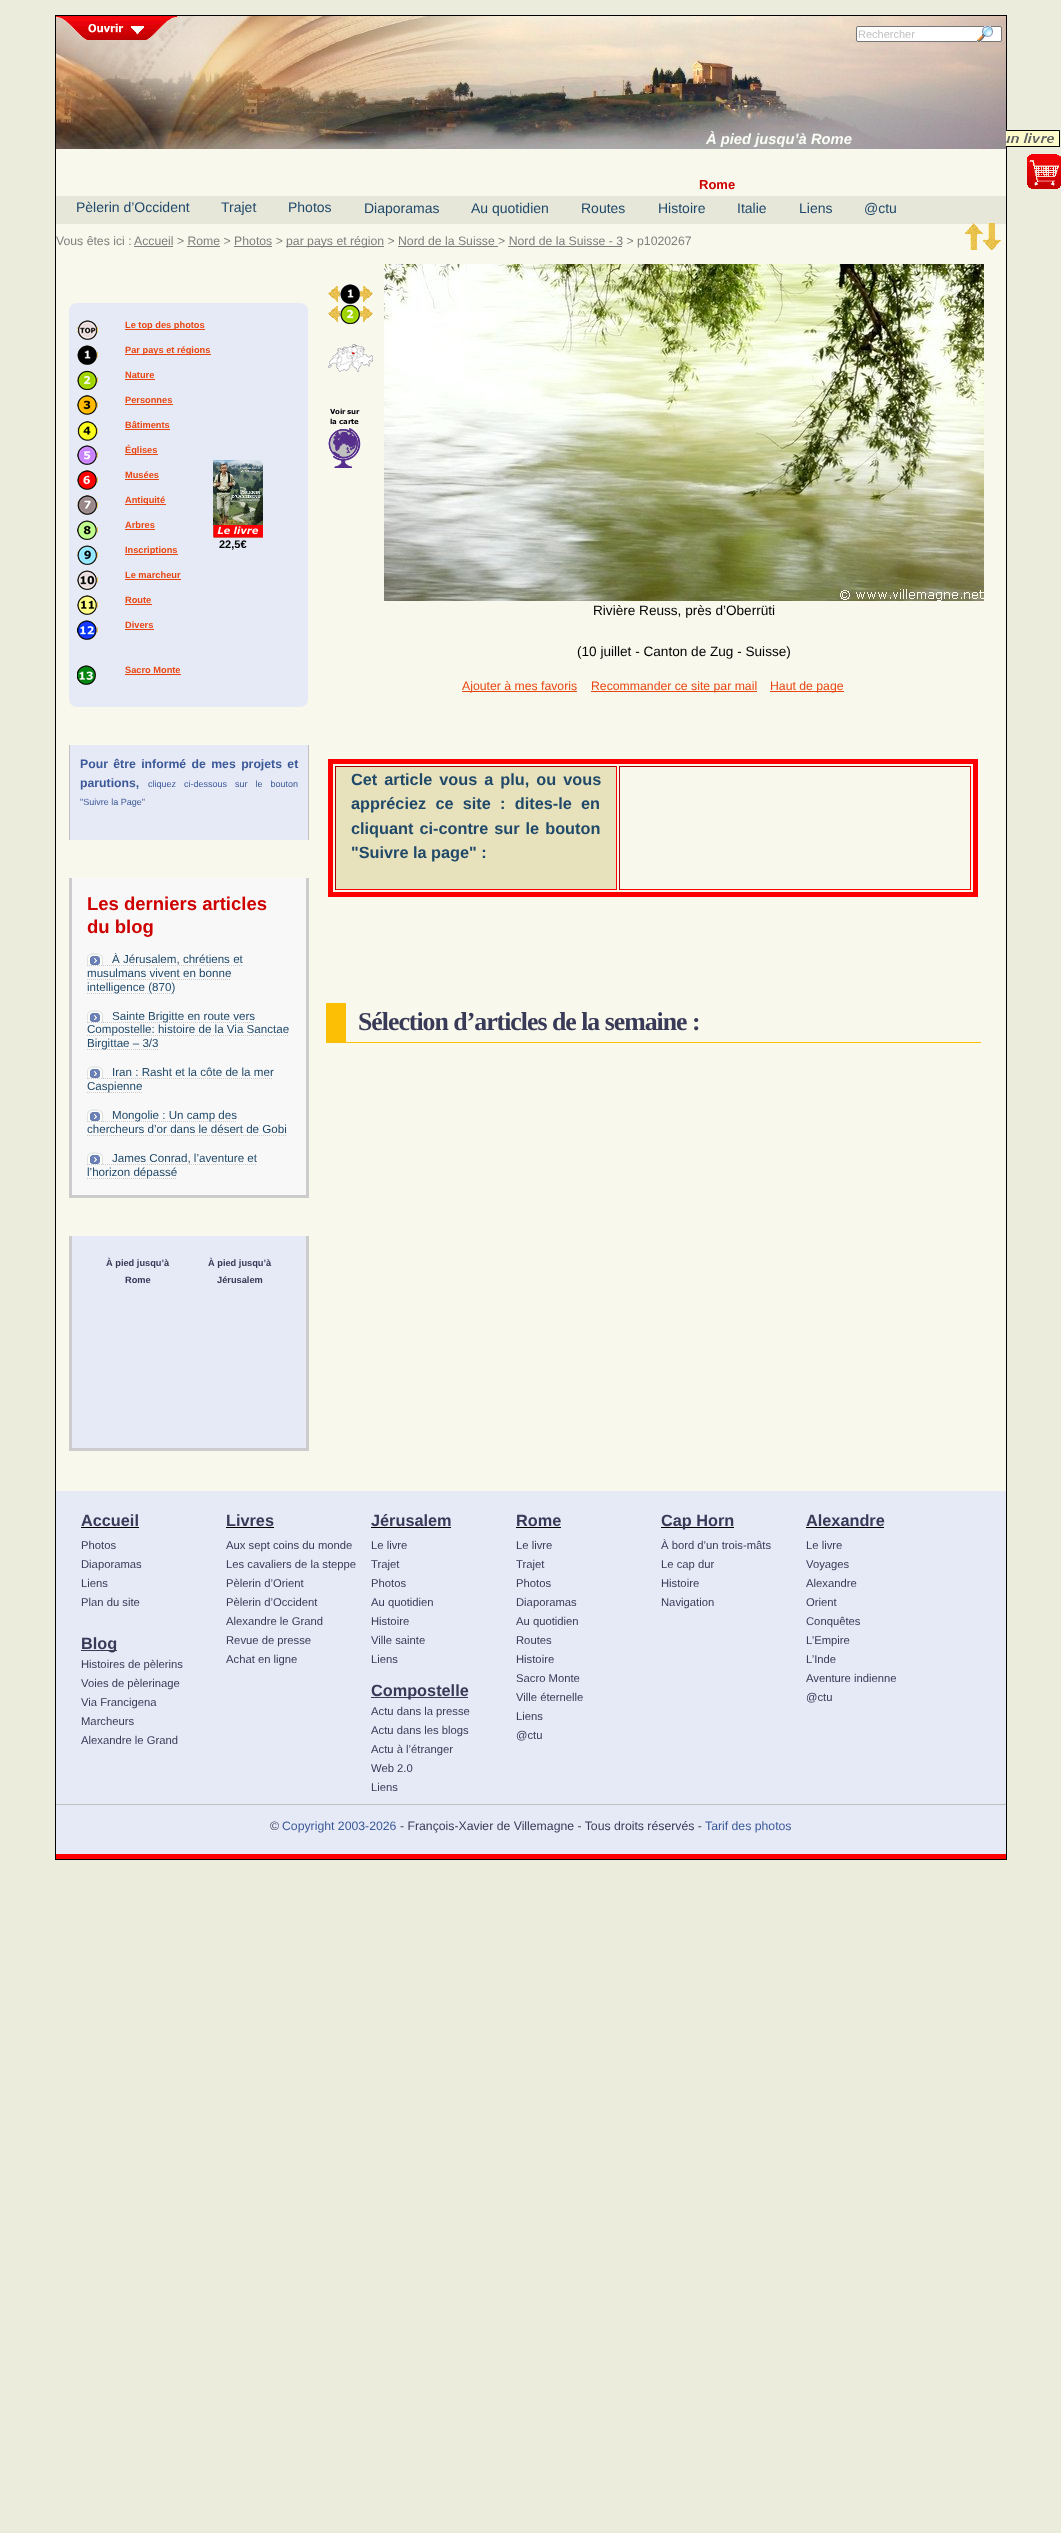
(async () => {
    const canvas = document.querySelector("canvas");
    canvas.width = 1061;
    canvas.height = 2533;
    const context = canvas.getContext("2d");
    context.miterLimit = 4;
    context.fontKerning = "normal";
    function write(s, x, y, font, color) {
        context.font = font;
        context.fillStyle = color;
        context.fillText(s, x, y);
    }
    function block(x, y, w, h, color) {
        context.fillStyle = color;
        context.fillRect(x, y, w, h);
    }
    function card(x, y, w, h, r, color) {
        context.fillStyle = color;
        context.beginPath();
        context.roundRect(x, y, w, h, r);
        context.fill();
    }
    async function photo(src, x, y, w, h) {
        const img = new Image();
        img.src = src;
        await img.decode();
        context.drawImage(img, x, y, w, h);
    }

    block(0, 0, 1061, 2533, "rgb(236, 236, 221)");
    block(56, 149, 950, 1342, "rgb(248, 248, 236)");
    context.strokeStyle = "rgb(0, 0, 0)";
    context.strokeRect(55.5, 15.5, 951, 1844);
    await photo("media/1.png", 56, 16, 950, 133);
    await photo("media/2.png", 56, 16, 121, 24);
    context.fillStyle = "rgb(255, 255, 255)";
    context.beginPath();
    context.roundRect(856.5, 26.5, 145, 15, 1.5);
    context.fill();
    context.strokeStyle = "rgb(118, 118, 118)";
    context.stroke();
    write("Rechercher", 858, 38, "11px Liberation Sans", "rgb(192, 192, 192)");
    await photo("media/3.png", 977, 26, 16, 16);
    write("À pied jusqu’à Rome", 706, 144, "italic bold 14.75px Liberation Sans", "rgb(251, 253, 247)");
    write("Rome", 699, 189, "bold 13px Liberation Sans", "rgb(206, 0, 0)");
    block(56, 196, 950, 28, "rgb(230, 231, 217)");
    write("Pèlerin d’Occident", 76, 212, "14px Liberation Sans", "rgb(31, 72, 105)");
    write("Trajet", 221, 212, "14px Liberation Sans", "rgb(31, 72, 105)");
    write("Photos", 288, 212, "14px Liberation Sans", "rgb(31, 72, 105)");
    write("Diaporamas", 364, 213, "14px Liberation Sans", "rgb(31, 72, 105)");
    write("Au quotidien", 471, 213, "14px Liberation Sans", "rgb(31, 72, 105)");
    write("Routes", 581, 213, "14px Liberation Sans", "rgb(31, 72, 105)");
    write("Histoire", 658, 213, "14px Liberation Sans", "rgb(31, 72, 105)");
    write("Italie", 737, 213, "14px Liberation Sans", "rgb(31, 72, 105)");
    write("Liens", 799, 213, "14px Liberation Sans", "rgb(31, 72, 105)");
    write("@ctu", 864, 213, "14px Liberation Sans", "rgb(31, 72, 105)");
    write("Vous êtes ici :", 56, 245, "12.25px Liberation Sans", "rgb(126, 127, 125)");
    write("Accueil > Rome > Photos >", 134, 245, "12.25px Liberation Sans", "rgb(126, 127, 125)");
    block(134, 246, 39, 1, "rgb(126, 127, 125)");
    block(286, 246, 98, 1, "rgb(126, 127, 125)");
    write("par pays et région > Nord de la Suisse > Nord de la Suisse - 3 > p1020267", 286, 245, "12.25px Liberation Sans", "rgb(126, 127, 125)");
    block(187, 246, 33, 1, "rgb(126, 127, 125)");
    block(234, 246, 38, 1, "rgb(126, 127, 125)");
    block(398, 246, 100, 1, "rgb(126, 127, 125)");
    block(508, 246, 114, 1, "rgb(126, 127, 125)");
    card(69, 303, 239, 404, 8, "rgb(230, 233, 246)");
    await photo("media/4.png", 77, 320, 21, 20);
    block(125, 329, 80, 1, "rgb(232, 71, 18)");
    write("Le top des photos", 125, 328, "bold 9.25px Liberation Sans", "rgb(232, 71, 18)");
    await photo("media/5.png", 77, 345, 21, 20);
    block(125, 354, 86, 1, "rgb(232, 71, 18)");
    write("Par pays et régions", 125, 353, "bold 9.25px Liberation Sans", "rgb(232, 71, 18)");
    await photo("media/6.png", 77, 370, 21, 20);
    write("Nature", 125, 378, "bold 9.25px Liberation Sans", "rgb(232, 71, 18)");
    block(125, 379, 30, 1, "rgb(232, 71, 18)");
    await photo("media/7.png", 77, 395, 21, 20);
    write("Personnes", 125, 403, "bold 9.25px Liberation Sans", "rgb(232, 71, 18)");
    block(125, 404, 48, 1, "rgb(232, 71, 18)");
    await photo("media/8.png", 77, 421, 21, 20);
    write("Bâtiments", 125, 428, "bold 9.25px Liberation Sans", "rgb(232, 71, 18)");
    block(125, 429, 45, 1, "rgb(232, 71, 18)");
    await photo("media/9.png", 77, 445, 21, 20);
    block(125, 454, 33, 1, "rgb(232, 71, 18)");
    write("Églises", 125, 453, "bold 9.25px Liberation Sans", "rgb(232, 71, 18)");
    await photo("media/10.png", 77, 470, 21, 20);
    write("Musées", 125, 478, "bold 9.25px Liberation Sans", "rgb(232, 71, 18)");
    block(125, 479, 34, 1, "rgb(232, 71, 18)");
    await photo("media/11.png", 77, 495, 21, 20);
    block(125, 504, 41, 1, "rgb(232, 71, 18)");
    write("Antiquité", 125, 503, "bold 9.25px Liberation Sans", "rgb(232, 71, 18)");
    await photo("media/12.png", 77, 520, 21, 20);
    write("Arbres", 125, 528, "bold 9.25px Liberation Sans", "rgb(232, 71, 18)");
    block(125, 529, 30, 1, "rgb(232, 71, 18)");
    await photo("media/13.png", 77, 545, 21, 20);
    block(125, 554, 53, 1, "rgb(232, 71, 18)");
    write("Inscriptions", 125, 553, "bold 9.25px Liberation Sans", "rgb(232, 71, 18)");
    await photo("media/14.png", 77, 570, 21, 20);
    write("Le marcheur", 125, 578, "bold 9.25px Liberation Sans", "rgb(232, 71, 18)");
    block(125, 579, 56, 1, "rgb(232, 71, 18)");
    await photo("media/15.png", 77, 595, 21, 20);
    write("Route", 125, 603, "bold 9.25px Liberation Sans", "rgb(232, 71, 18)");
    block(125, 604, 27, 1, "rgb(232, 71, 18)");
    await photo("media/16.png", 77, 620, 21, 20);
    write("Divers", 125, 628, "bold 9.25px Liberation Sans", "rgb(232, 71, 18)");
    block(125, 629, 29, 1, "rgb(232, 71, 18)");
    await photo("media/17.png", 77, 665, 19, 20);
    write("Sacro Monte", 125, 673, "bold 9.25px Liberation Sans", "rgb(232, 71, 18)");
    block(125, 674, 56, 1, "rgb(232, 71, 18)");
    await photo("media/18.png", 213, 460, 50, 78);
    write("22,5€", 219, 548, "bold 11px Liberation Sans", "rgb(0, 0, 0)");
    block(70, 745, 238, 95, "rgb(230, 233, 246)");
    block(308, 745, 1, 95, "rgb(192, 192, 192)");
    block(69, 745, 1, 95, "rgb(192, 192, 192)");
    context.wordSpacing = "2px";
    write("Pour être informé de mes projets et", 80, 768, "bold 12.25px Liberation Sans", "rgb(59, 89, 152)");
    context.wordSpacing = "0px";
    write("parutions,", 80, 787, "bold 12.25px Liberation Sans", "rgb(59, 89, 152)");
    context.wordSpacing = "5.5px";
    write("cliquez ci-dessous sur le bouton", 148, 787, "9px Liberation Sans", "rgb(59, 89, 152)");
    context.wordSpacing = "0px";
    write("\"Suivre la Page\"", 80, 805, "9px Liberation Sans", "rgb(59, 89, 152)");
    block(72, 878, 234, 317, "rgb(248, 248, 248)");
    block(306, 878, 3, 320, "rgb(204, 204, 204)");
    block(69, 1195, 240, 3, "rgb(204, 204, 204)");
    block(69, 878, 3, 320, "rgb(204, 204, 204)");
    write("Les derniers articles", 87, 910, "bold 18.5px Liberation Sans", "rgb(206, 0, 0)");
    write("du blog", 87, 933, "bold 18.5px Liberation Sans", "rgb(206, 0, 0)");
    await photo("media/19.png", 87, 953, 16, 13);
    write("À Jérusalem, chrétiens et", 112, 963, "11.6px Liberation Sans", "rgb(31, 72, 105)");
    context.beginPath();
    context.moveTo(87, 965.5);
    context.lineTo(242, 965.5);
    context.strokeStyle = "rgb(204, 204, 204)";
    context.setLineDash([1, 1]);
    context.stroke();
    write("musulmans vivent en bonne", 87, 977, "11.6px Liberation Sans", "rgb(31, 72, 105)");
    context.beginPath();
    context.moveTo(87, 979.5);
    context.lineTo(231, 979.5);
    context.stroke();
    context.beginPath();
    context.moveTo(87, 993.5);
    context.lineTo(175, 993.5);
    context.stroke();
    write("intelligence (870)", 87, 991, "11.6px Liberation Sans", "rgb(31, 72, 105)");
    await photo("media/19.png", 87, 1010, 16, 13);
    context.beginPath();
    context.moveTo(87, 1022.5);
    context.lineTo(255, 1022.5);
    context.stroke();
    write("Sainte Brigitte en route vers", 112, 1020, "11.6px Liberation Sans", "rgb(31, 72, 105)");
    context.beginPath();
    context.moveTo(87, 1035.5);
    context.lineTo(288, 1035.5);
    context.stroke();
    write("Compostelle: histoire de la Via Sanctae", 87, 1033, "11.6px Liberation Sans", "rgb(31, 72, 105)");
    context.beginPath();
    context.moveTo(87, 1049.5);
    context.lineTo(158, 1049.5);
    context.stroke();
    write("Birgittae – 3/3", 87, 1047, "11.6px Liberation Sans", "rgb(31, 72, 105)");
    await photo("media/19.png", 87, 1066, 16, 13);
    write("Iran : Rasht et la côte de la mer", 112, 1076, "11.6px Liberation Sans", "rgb(31, 72, 105)");
    context.beginPath();
    context.moveTo(87, 1078.5);
    context.lineTo(273, 1078.5);
    context.stroke();
    context.beginPath();
    context.moveTo(87, 1092.5);
    context.lineTo(142, 1092.5);
    context.stroke();
    write("Caspienne", 87, 1090, "11.6px Liberation Sans", "rgb(31, 72, 105)");
    await photo("media/19.png", 87, 1109, 16, 13);
    context.beginPath();
    context.moveTo(87, 1121.5);
    context.lineTo(237, 1121.5);
    context.stroke();
    write("Mongolie : Un camp des", 112, 1119, "11.6px Liberation Sans", "rgb(31, 72, 105)");
    write("chercheurs d’or dans le désert de Gobi", 87, 1133, "11.6px Liberation Sans", "rgb(31, 72, 105)");
    context.beginPath();
    context.moveTo(87, 1135.5);
    context.lineTo(286, 1135.5);
    context.stroke();
    await photo("media/19.png", 87, 1152, 16, 13);
    write("James Conrad, l’aventure et", 112, 1162, "11.6px Liberation Sans", "rgb(31, 72, 105)");
    context.beginPath();
    context.moveTo(87, 1164.5);
    context.lineTo(257, 1164.5);
    context.stroke();
    context.beginPath();
    context.moveTo(87, 1178.5);
    context.lineTo(177, 1178.5);
    context.stroke();
    write("l’horizon dépassé", 87, 1176, "11.6px Liberation Sans", "rgb(31, 72, 105)");
    block(72, 1236, 234, 212, "rgb(230, 233, 246)");
    block(306, 1236, 3, 215, "rgb(204, 204, 204)");
    block(69, 1448, 240, 3, "rgb(204, 204, 204)");
    block(69, 1236, 3, 215, "rgb(204, 204, 204)");
    write("À pied jusqu’à", 106, 1266, "bold 9.25px Liberation Sans", "rgb(56, 58, 87)");
    write("Rome", 125, 1283, "bold 9.25px Liberation Sans", "rgb(56, 58, 87)");
    write("À pied jusqu’à", 208, 1266, "bold 9.25px Liberation Sans", "rgb(56, 58, 87)");
    write("Jérusalem", 217, 1283, "bold 9.25px Liberation Sans", "rgb(56, 58, 87)");
    await photo("media/20.png", 965, 223, 18, 27);
    await photo("media/21.png", 983, 223, 18, 27);
    await photo("media/22.png", 328, 284, 45, 20);
    await photo("media/23.png", 328, 304, 45, 20);
    await photo("media/24.png", 328, 344, 45, 28);
    await photo("media/25.png", 328, 408, 33, 60);
    await photo("media/26.png", 384, 264, 600, 337);
    write("Rivière Reuss, près d’Oberrüti", 593, 615, "13.6px Liberation Sans", "rgb(0, 0, 0)");
    write("(10 juillet - Canton de Zug - Suisse)", 577, 656, "13.6px Liberation Sans", "rgb(0, 0, 0)");
    block(462, 691, 115, 1, "rgb(232, 71, 18)");
    write("Ajouter à mes favoris", 462, 690, "12.25px Liberation Sans", "rgb(232, 71, 18)");
    block(591, 691, 166, 1, "rgb(232, 71, 18)");
    write("Recommander ce site par mail", 591, 690, "12.25px Liberation Sans", "rgb(232, 71, 18)");
    block(770, 691, 74, 1, "rgb(232, 71, 18)");
    write("Haut de page", 770, 690, "12.25px Liberation Sans", "rgb(232, 71, 18)");
    context.strokeStyle = "rgb(255, 0, 0)";
    context.lineWidth = 5;
    context.setLineDash([]);
    context.strokeRect(330.5, 761.5, 645, 133);
    block(336, 767, 280, 122, "rgb(231, 226, 188)");
    block(335, 766, 282, 1, "rgb(170, 0, 0)");
    block(616, 766, 1, 124, "rgb(255, 0, 0)");
    block(335, 889, 282, 1, "rgb(255, 0, 0)");
    block(335, 766, 1, 124, "rgb(170, 0, 0)");
    context.wordSpacing = "2.5px";
    write("Cet article vous a plu, ou vous", 351, 785, "bold 16.3px Liberation Sans", "rgb(31, 72, 105)");
    context.wordSpacing = "4.75px";
    write("appréciez ce site : dites-le en", 351, 809, "bold 16.3px Liberation Sans", "rgb(31, 72, 105)");
    context.wordSpacing = "1.5px";
    write("cliquant ci-contre sur le bouton", 351, 834, "bold 16.3px Liberation Sans", "rgb(31, 72, 105)");
    context.wordSpacing = "0px";
    write("\"Suivre la page\" :", 351, 858, "bold 16.3px Liberation Sans", "rgb(31, 72, 105)");
    block(619, 766, 352, 1, "rgb(170, 0, 0)");
    block(970, 766, 1, 124, "rgb(255, 0, 0)");
    block(619, 889, 352, 1, "rgb(255, 0, 0)");
    block(619, 766, 1, 124, "rgb(170, 0, 0)");
    block(346, 1042, 635, 1, "rgb(253, 191, 5)");
    block(326, 1003, 20, 40, "rgb(253, 191, 5)");
    context.letterSpacing = "-1px";
    write("Sélection d’articles de la semaine :", 358, 1030, "bold 25.8px Liberation Serif", "rgb(56, 58, 87)");
    block(56, 1491, 950, 363, "rgb(230, 233, 246)");
    context.letterSpacing = "0px";
    write("Accueil", 81, 1526, "bold 16.3px Liberation Sans", "rgb(56, 58, 87)");
    block(81, 1527, 58, 1, "rgb(0, 0, 0)");
    write("Photos", 81, 1549, "11.25px Liberation Sans", "rgb(56, 58, 87)");
    write("Diaporamas", 81, 1568, "11.25px Liberation Sans", "rgb(56, 58, 87)");
    write("Liens", 81, 1587, "11.25px Liberation Sans", "rgb(56, 58, 87)");
    write("Plan du site", 81, 1606, "11.25px Liberation Sans", "rgb(56, 58, 87)");
    block(81, 1650, 36, 1, "rgb(56, 58, 87)");
    write("Blog", 81, 1649, "bold 16.3px Liberation Sans", "rgb(56, 58, 87)");
    write("Histoires de pèlerins", 81, 1668, "11.25px Liberation Sans", "rgb(56, 58, 87)");
    write("Voies de pèlerinage", 81, 1687, "11.25px Liberation Sans", "rgb(56, 58, 87)");
    write("Via Francigena", 81, 1706, "11.25px Liberation Sans", "rgb(56, 58, 87)");
    write("Marcheurs", 81, 1725, "11.25px Liberation Sans", "rgb(56, 58, 87)");
    write("Alexandre le Grand", 81, 1744, "11.25px Liberation Sans", "rgb(56, 58, 87)");
    write("Livres", 226, 1526, "bold 16.3px Liberation Sans", "rgb(56, 58, 87)");
    block(226, 1527, 48, 1, "rgb(0, 0, 0)");
    write("Aux sept coins du monde", 226, 1549, "11.25px Liberation Sans", "rgb(56, 58, 87)");
    write("Les cavaliers de la steppe", 226, 1568, "11.25px Liberation Sans", "rgb(56, 58, 87)");
    write("Pèlerin d’Orient", 226, 1587, "11.25px Liberation Sans", "rgb(56, 58, 87)");
    write("Pèlerin d’Occident", 226, 1606, "11.25px Liberation Sans", "rgb(56, 58, 87)");
    write("Alexandre le Grand", 226, 1625, "11.25px Liberation Sans", "rgb(56, 58, 87)");
    write("Revue de presse", 226, 1644, "11.25px Liberation Sans", "rgb(56, 58, 87)");
    write("Achat en ligne", 226, 1663, "11.25px Liberation Sans", "rgb(56, 58, 87)");
    write("Jérusalem", 371, 1526, "bold 16.3px Liberation Sans", "rgb(56, 58, 87)");
    block(371, 1527, 80, 1, "rgb(0, 0, 0)");
    write("Le livre", 371, 1549, "11.25px Liberation Sans", "rgb(56, 58, 87)");
    write("Trajet", 371, 1568, "11.25px Liberation Sans", "rgb(56, 58, 87)");
    write("Photos", 371, 1587, "11.25px Liberation Sans", "rgb(56, 58, 87)");
    write("Au quotidien", 371, 1606, "11.25px Liberation Sans", "rgb(56, 58, 87)");
    write("Histoire", 371, 1625, "11.25px Liberation Sans", "rgb(56, 58, 87)");
    write("Ville sainte", 371, 1644, "11.25px Liberation Sans", "rgb(56, 58, 87)");
    write("Liens", 371, 1663, "11.25px Liberation Sans", "rgb(56, 58, 87)");
    block(371, 1697, 97, 1, "rgb(56, 58, 87)");
    write("Compostelle", 371, 1696, "bold 16.3px Liberation Sans", "rgb(56, 58, 87)");
    write("Actu dans la presse", 371, 1715, "11.25px Liberation Sans", "rgb(56, 58, 87)");
    write("Actu dans les blogs", 371, 1734, "11.25px Liberation Sans", "rgb(56, 58, 87)");
    write("Actu à l’étranger", 371, 1753, "11.25px Liberation Sans", "rgb(56, 58, 87)");
    write("Web 2.0", 371, 1772, "11.25px Liberation Sans", "rgb(56, 58, 87)");
    write("Liens", 371, 1791, "11.25px Liberation Sans", "rgb(56, 58, 87)");
    write("Rome", 516, 1526, "bold 16.3px Liberation Sans", "rgb(56, 58, 87)");
    block(516, 1527, 45, 1, "rgb(0, 0, 0)");
    write("Le livre", 516, 1549, "11.25px Liberation Sans", "rgb(56, 58, 87)");
    write("Trajet", 516, 1568, "11.25px Liberation Sans", "rgb(56, 58, 87)");
    write("Photos", 516, 1587, "11.25px Liberation Sans", "rgb(56, 58, 87)");
    write("Diaporamas", 516, 1606, "11.25px Liberation Sans", "rgb(56, 58, 87)");
    write("Au quotidien", 516, 1625, "11.25px Liberation Sans", "rgb(56, 58, 87)");
    write("Routes", 516, 1644, "11.25px Liberation Sans", "rgb(56, 58, 87)");
    write("Histoire", 516, 1663, "11.25px Liberation Sans", "rgb(56, 58, 87)");
    write("Sacro Monte", 516, 1682, "11.25px Liberation Sans", "rgb(56, 58, 87)");
    write("Ville éternelle", 516, 1701, "11.25px Liberation Sans", "rgb(56, 58, 87)");
    write("Liens", 516, 1720, "11.25px Liberation Sans", "rgb(56, 58, 87)");
    write("@ctu", 516, 1739, "11.25px Liberation Sans", "rgb(56, 58, 87)");
    block(661, 1527, 73, 1, "rgb(0, 0, 0)");
    write("Cap Horn", 661, 1526, "bold 16.3px Liberation Sans", "rgb(56, 58, 87)");
    write("À bord d’un trois-mâts", 661, 1549, "11.25px Liberation Sans", "rgb(56, 58, 87)");
    write("Le cap dur", 661, 1568, "11.25px Liberation Sans", "rgb(56, 58, 87)");
    write("Histoire", 661, 1587, "11.25px Liberation Sans", "rgb(56, 58, 87)");
    write("Navigation", 661, 1606, "11.25px Liberation Sans", "rgb(56, 58, 87)");
    write("Alexandre", 806, 1526, "bold 16.3px Liberation Sans", "rgb(56, 58, 87)");
    block(806, 1527, 78, 1, "rgb(0, 0, 0)");
    write("Le livre", 806, 1549, "11.25px Liberation Sans", "rgb(56, 58, 87)");
    write("Voyages", 806, 1568, "11.25px Liberation Sans", "rgb(56, 58, 87)");
    write("Alexandre", 806, 1587, "11.25px Liberation Sans", "rgb(56, 58, 87)");
    write("Orient", 806, 1606, "11.25px Liberation Sans", "rgb(56, 58, 87)");
    write("Conquêtes", 806, 1625, "11.25px Liberation Sans", "rgb(56, 58, 87)");
    write("L’Empire", 806, 1644, "11.25px Liberation Sans", "rgb(56, 58, 87)");
    write("L’Inde", 806, 1663, "11.25px Liberation Sans", "rgb(56, 58, 87)");
    write("Aventure indienne", 806, 1682, "11.25px Liberation Sans", "rgb(56, 58, 87)");
    write("@ctu", 806, 1701, "11.25px Liberation Sans", "rgb(56, 58, 87)");
    block(56, 1804, 950, 1, "rgb(192, 192, 192)");
    block(56, 1854, 950, 5, "rgb(255, 0, 0)");
    write("©", 270, 1830, "12.25px Liberation Sans", "rgb(56, 58, 87)");
    write("Copyright 2003-2026", 282, 1830, "12.25px Liberation Sans", "rgb(59, 89, 152)");
    write("- François-Xavier de Villemagne - Tous droits réservés -", 400, 1830, "12.25px Liberation Sans", "rgb(56, 58, 87)");
    write("Tarif des photos", 705, 1830, "12.25px Liberation Sans", "rgb(59, 89, 152)");
    await photo("media/27.png", 1006, 130, 54, 17);
    await photo("media/28.png", 1027, 154, 34, 35);
})();
